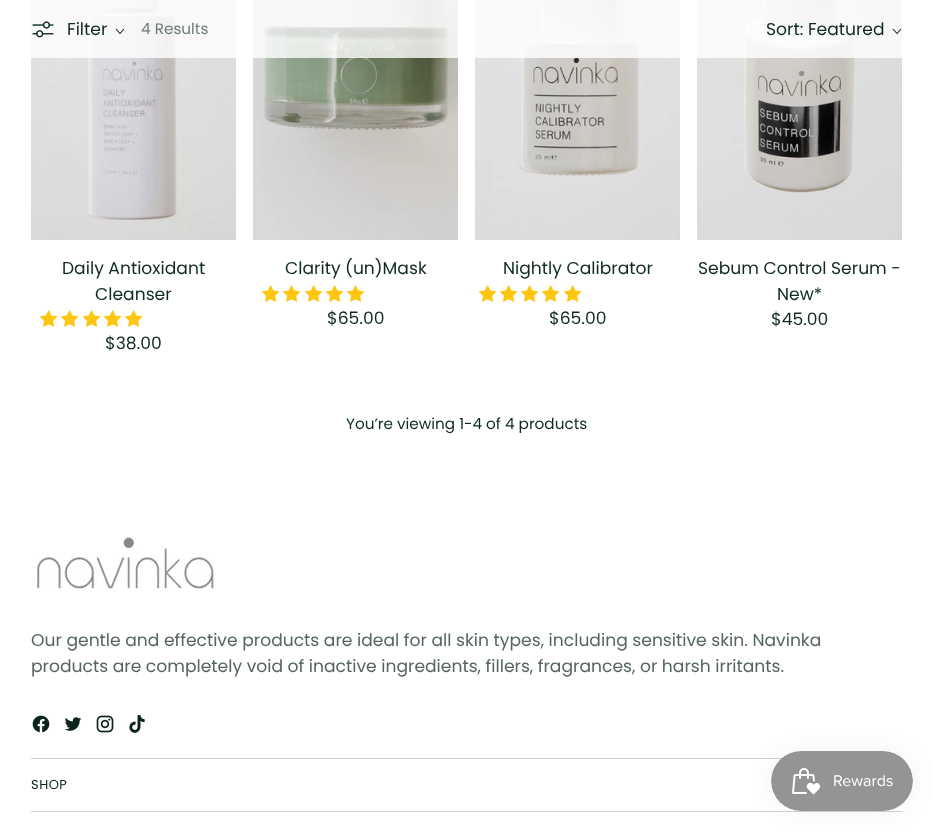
(async () => {
    const canvas = document.querySelector("canvas");
    canvas.width = 933;
    canvas.height = 831;
    const context = canvas.getContext("2d");
    context.miterLimit = 4;
    context.fontKerning = "normal";
    function write(s, x, y, font, color) {
        context.font = font;
        context.fillStyle = color;
        context.fillText(s, x, y);
    }
    function block(x, y, w, h, color) {
        context.fillStyle = color;
        context.fillRect(x, y, w, h);
    }
    async function photo(src, x, y, w, h) {
        const img = new Image();
        img.src = src;
        await img.decode();
        context.drawImage(img, x, y, w, h);
    }

    block(0, 0, 933, 831, "rgb(255, 255, 255)");
    await photo("media/2.png", 31, 0, 205, 240);
    await photo("media/4.png", 253, 0, 205, 240);
    await photo("media/5.png", 475, 0, 205, 240);
    await photo("media/6.png", 697, 0, 205, 240);
    block(31, 0, 871, 58, "rgba(255, 255, 255, 0.8)");
    await photo("media/1.png", 32, 21, 22, 17);
    write("Filter", 67, 35, "17.15px Poppins", "rgb(16, 43, 38)");
    context.beginPath();
    context.moveTo(116, 29);
    context.lineTo(120, 33.5);
    context.lineTo(124, 29);
    context.strokeStyle = "rgb(16, 43, 38)";
    context.lineWidth = 1.1;
    context.stroke();
    write("4 Results", 141, 34, "15.25px Poppins", "rgb(108, 124, 121)");
    write("Sort: Featured", 766, 35, "17.15px Poppins", "rgb(16, 43, 38)");
    context.beginPath();
    context.moveTo(893, 29);
    context.lineTo(897, 33.5);
    context.lineTo(901, 29);
    context.stroke();
    write("Daily Antioxidant", 62, 274, "17.15px Poppins", "rgb(16, 43, 38)");
    write("Cleanser", 95, 300, "17.15px Poppins", "rgb(16, 43, 38)");
    await photo("media/3.png", 40, 310, 18, 17);
    await photo("media/3.png", 61, 310, 18, 17);
    await photo("media/3.png", 83, 310, 18, 17);
    await photo("media/3.png", 104, 310, 18, 17);
    await photo("media/3.png", 125, 310, 18, 17);
    write("$38.00", 105, 349, "17.15px Poppins", "rgb(16, 43, 38)");
    write("Clarity (un)Mask", 285, 274, "17.15px Poppins", "rgb(16, 43, 38)");
    await photo("media/3.png", 262, 285, 18, 17);
    await photo("media/3.png", 283, 285, 18, 17);
    await photo("media/3.png", 305, 285, 18, 17);
    await photo("media/3.png", 326, 285, 18, 17);
    await photo("media/3.png", 347, 285, 18, 17);
    write("$65.00", 327, 324, "17.15px Poppins", "rgb(16, 43, 38)");
    write("Nightly Calibrator", 503, 274, "17.15px Poppins", "rgb(16, 43, 38)");
    await photo("media/3.png", 479, 285, 18, 17);
    await photo("media/3.png", 500, 285, 18, 17);
    await photo("media/3.png", 521, 285, 18, 17);
    await photo("media/3.png", 542, 285, 18, 17);
    await photo("media/3.png", 564, 285, 18, 17);
    write("$65.00", 549, 324, "17.15px Poppins", "rgb(16, 43, 38)");
    write("Sebum Control Serum -", 698, 274, "17.15px Poppins", "rgb(16, 43, 38)");
    write("New*", 777, 300, "17.15px Poppins", "rgb(16, 43, 38)");
    write("$45.00", 771, 325, "17.15px Poppins", "rgb(16, 43, 38)");
    write("You’re viewing 1-4 of 4 products", 346, 429, "15.25px Poppins", "rgb(16, 43, 38)");
    block(31, 758, 751, 1, "rgb(206, 211, 210)");
    await photo("media/7.png", 36, 536, 179, 56);
    write("Our gentle and effective products are ideal for all skin types, including sensitive skin. Navinka", 31, 646, "17.15px Poppins", "rgb(85, 101, 98)");
    write("products are completely void of inactive ingredients, fillers, fragrances, or harsh irritants.", 31, 672, "17.15px Poppins", "rgb(85, 101, 98)");
    await photo("media/8.png", 32, 715, 18, 18);
    await photo("media/9.png", 65, 717, 17, 14);
    await photo("media/10.png", 96, 715, 18, 18);
    await photo("media/11.png", 129, 715, 16, 18);
    block(31, 811, 871, 1, "rgb(206, 211, 210)");
    context.letterSpacing = "0.5px";
    write("SHOP", 31, 789, "13px Poppins", "rgb(12, 35, 30)");
    context.fillStyle = "rgba(0, 0, 0, 0.05)";
    context.filter = "blur(12.5px)";
    context.beginPath();
    context.roundRect(771, 751, 142, 60, 30);
    context.fill();
    context.filter = "none";
    await photo("media/12.png", 771, 751, 142, 60);
})();
